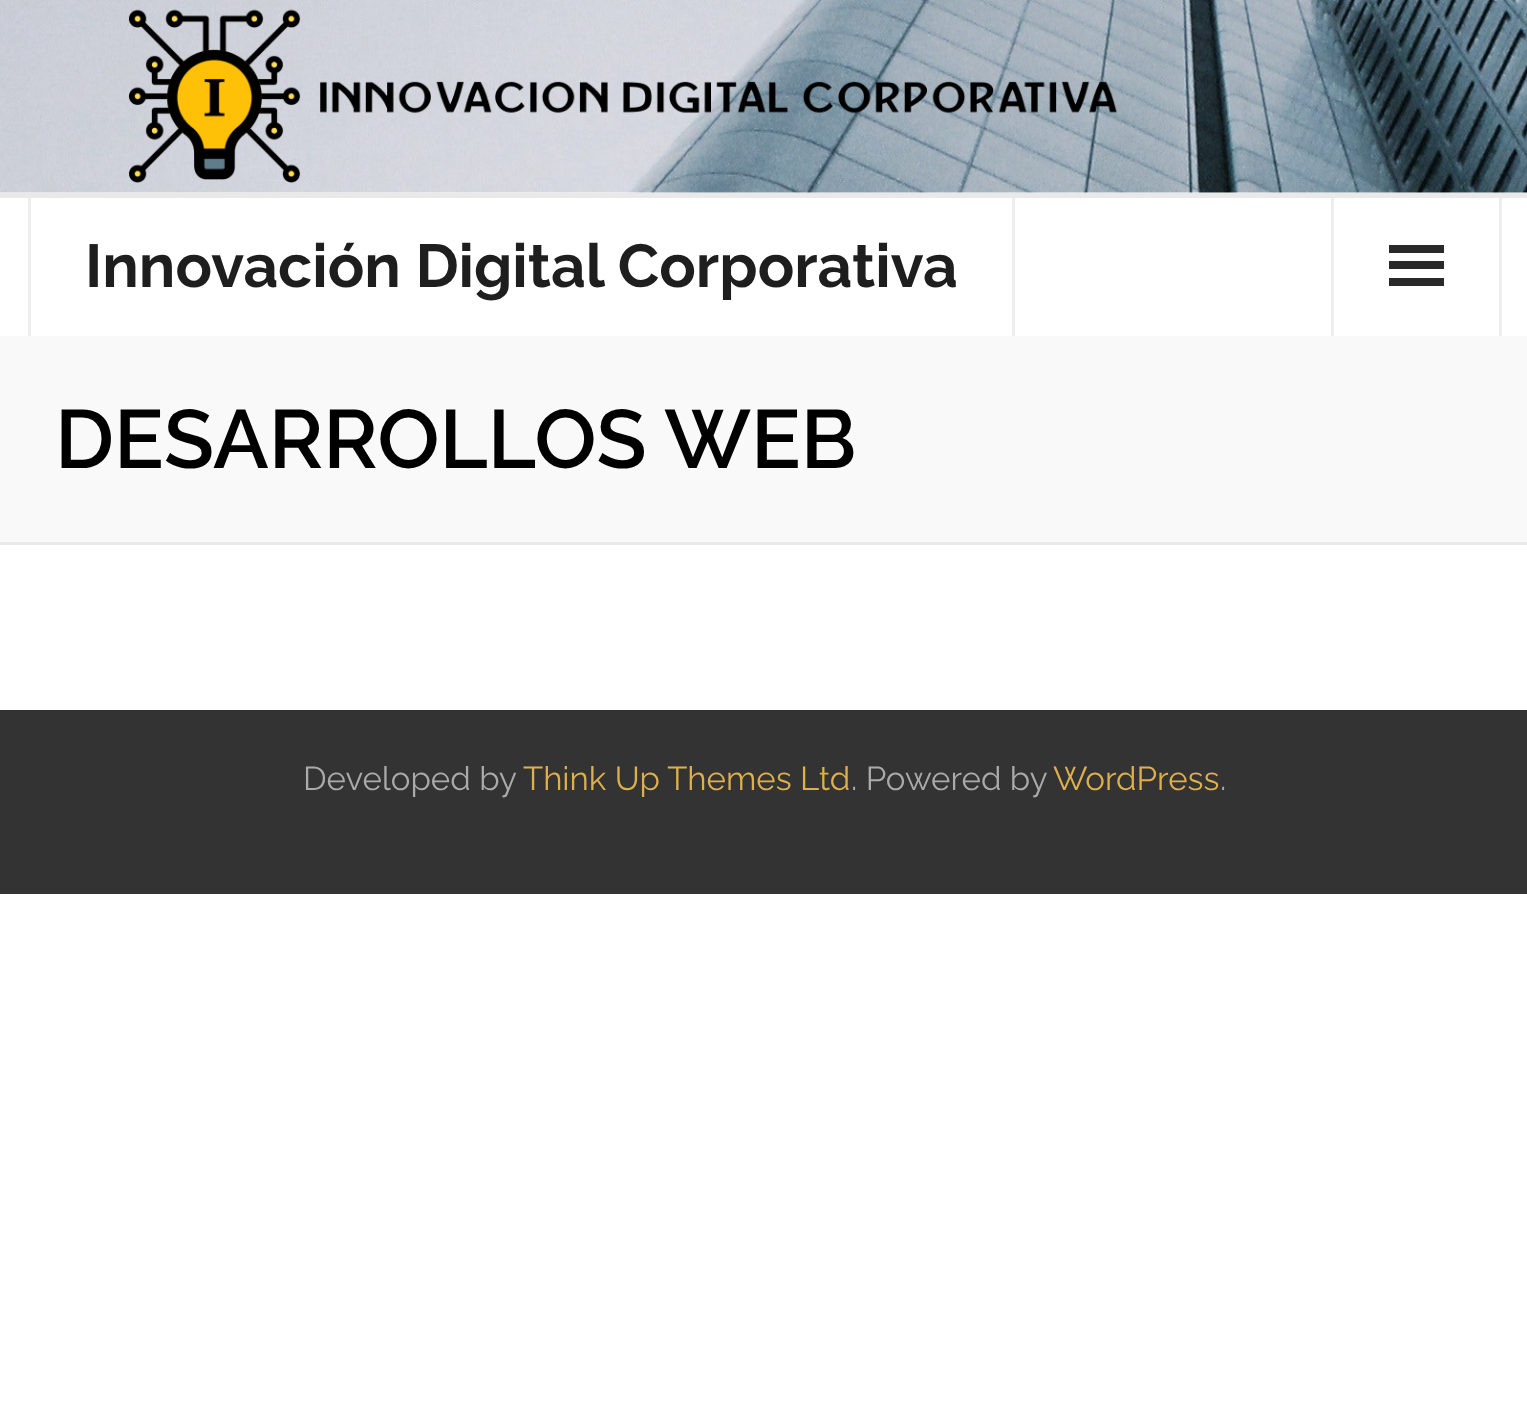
(async () => {
    const canvas = document.querySelector("canvas");
    canvas.width = 1527;
    canvas.height = 1409;
    const context = canvas.getContext("2d");
    context.miterLimit = 4;
    context.fontKerning = "normal";
    function write(s, x, y, font, color) {
        context.font = font;
        context.fillStyle = color;
        context.fillText(s, x, y);
    }
    function block(x, y, w, h, color) {
        context.fillStyle = color;
        context.fillRect(x, y, w, h);
    }
    async function photo(src, x, y, w, h) {
        const img = new Image();
        img.src = src;
        await img.decode();
        context.drawImage(img, x, y, w, h);
    }

    block(0, 0, 1527, 1409, "rgb(255, 255, 255)");
    await photo("media/1.png", 0, 0, 1527, 193);
    block(0, 193, 1527, 5, "rgb(233, 233, 233)");
    block(1012, 198, 3, 138, "rgb(238, 238, 238)");
    block(28, 198, 3, 138, "rgb(238, 238, 238)");
    write("Innovación Digital Corporativa", 85, 287, "bold 60.5px Raleway", "rgb(30, 30, 30)");
    block(1499, 198, 3, 138, "rgb(238, 238, 238)");
    block(1331, 198, 3, 138, "rgb(238, 238, 238)");
    block(1389, 245, 55, 8, "rgb(41, 41, 41)");
    block(1389, 261, 55, 8, "rgb(41, 41, 41)");
    block(1389, 278, 55, 8, "rgb(41, 41, 41)");
    block(0, 336, 1527, 206, "rgb(249, 249, 249)");
    block(0, 542, 1527, 3, "rgb(233, 233, 233)");
    write("DESARROLLOS WEB", 55, 468, "600 82.5px Raleway", "rgb(0, 0, 0)");
    block(0, 710, 1527, 184, "rgb(51, 51, 51)");
    write("Developed by", 303, 790, "33px Raleway", "rgb(170, 170, 170)");
    write("Think Up Themes Ltd", 523, 790, "33px Raleway", "rgb(221, 175, 77)");
    write(". Powered by", 851, 790, "33px Raleway", "rgb(170, 170, 170)");
    write("WordPress", 1053, 790, "33px Raleway", "rgb(221, 175, 77)");
    write(".", 1220, 790, "33px Raleway", "rgb(170, 170, 170)");
})();
